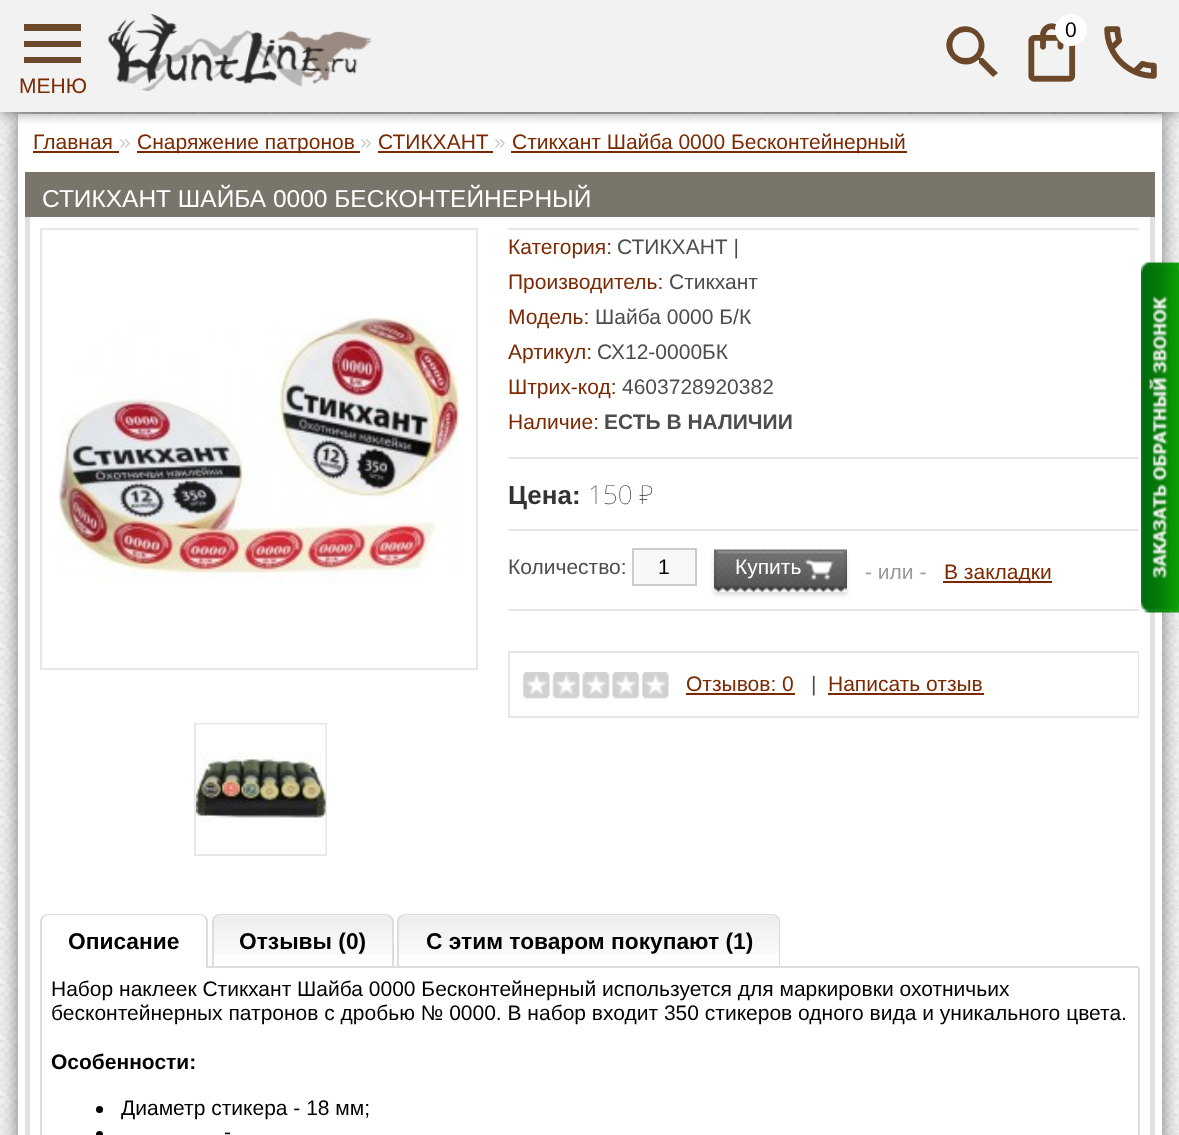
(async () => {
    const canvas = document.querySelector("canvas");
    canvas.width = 1179;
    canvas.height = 1135;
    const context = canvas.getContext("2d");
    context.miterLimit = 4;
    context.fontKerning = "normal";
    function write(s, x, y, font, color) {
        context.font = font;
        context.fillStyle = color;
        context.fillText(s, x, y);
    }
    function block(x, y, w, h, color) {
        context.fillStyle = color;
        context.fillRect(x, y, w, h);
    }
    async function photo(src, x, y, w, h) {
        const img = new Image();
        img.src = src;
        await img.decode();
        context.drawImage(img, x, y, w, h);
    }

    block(0, 0, 1179, 1135, "rgb(255, 255, 255)");
    await photo("media/1.png", 0, 112, 1179, 1023);
    context.fillStyle = "rgba(0, 0, 0, 0.5)";
    context.filter = "blur(9px)";
    context.beginPath();
    context.rect(18, 114, 1144, 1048);
    context.fill();
    context.filter = "none";
    block(18, 114, 1144, 1021, "rgb(255, 255, 255)");
    context.fillStyle = "rgba(0, 0, 0, 0.5)";
    context.filter = "blur(7px)";
    context.beginPath();
    context.rect(0, 0, 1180, 112);
    context.fill();
    context.filter = "none";
    block(0, 0, 1179, 112, "rgb(242, 242, 242)");
    await photo("media/2.png", 108, 14, 263, 77);
    context.fillStyle = "rgb(107, 72, 41)";
    context.beginPath();
    context.moveTo(983, 58);
    context.lineTo(981, 58);
    context.lineTo(980, 58);
    context.bezierCurveTo(995, 40, 970, 15, 952, 32);
    context.bezierCurveTo(935, 49, 960, 75, 978, 60);
    context.lineTo(979, 60);
    context.lineTo(979, 63);
    context.lineTo(993, 77);
    context.lineTo(998, 73);
    context.closePath();
    context.moveTo(966, 58);
    context.bezierCurveTo(948, 58, 948, 32, 966, 32);
    context.bezierCurveTo(983, 32, 983, 58, 966, 58);
    context.closePath();
    context.fill();
    await photo("media/3.png", 1028, 23, 48, 59);
    context.fillStyle = "rgb(255, 255, 255)";
    context.beginPath();
    context.arc(1071, 30, 16, 0, Math.PI * 2);
    context.fill();
    write("0", 1065, 37, "21px Liberation Sans", "rgb(0, 0, 0)");
    await photo("media/4.png", 1104, 26, 53, 53);
    context.fillStyle = "rgb(107, 72, 41)";
    context.beginPath();
    context.moveTo(24, 63);
    context.lineTo(81, 63);
    context.lineTo(81, 57);
    context.lineTo(24, 57);
    context.closePath();
    context.moveTo(24, 47);
    context.lineTo(81, 47);
    context.lineTo(81, 41);
    context.lineTo(24, 41);
    context.closePath();
    context.moveTo(24, 24);
    context.lineTo(24, 31);
    context.lineTo(81, 31);
    context.lineTo(81, 24);
    context.closePath();
    context.fill();
    write("МЕНЮ", 19, 93, "21px Liberation Sans", "rgb(123, 41, 2)");
    write("Главная", 33, 149, "21px Liberation Sans", "rgb(123, 41, 2)");
    block(33, 151, 86, 2, "rgb(123, 41, 2)");
    write("»", 119, 149, "21px Liberation Sans", "rgb(204, 204, 204)");
    block(137, 151, 223, 2, "rgb(123, 41, 2)");
    write("Снаряжение патронов", 137, 149, "21px Liberation Sans", "rgb(123, 41, 2)");
    write("»", 360, 149, "21px Liberation Sans", "rgb(204, 204, 204)");
    write("СТИКХАНТ", 378, 149, "21px Liberation Sans", "rgb(123, 41, 2)");
    block(378, 151, 115, 2, "rgb(123, 41, 2)");
    write("»", 494, 149, "21px Liberation Sans", "rgb(204, 204, 204)");
    block(511, 151, 396, 2, "rgb(123, 41, 2)");
    write("Стикхант Шайба 0000 Бесконтейнерный", 512, 149, "21px Liberation Sans", "rgb(123, 41, 2)");
    block(25, 172, 1130, 45, "rgb(122, 117, 107)");
    write("СТИКХАНТ ШАЙБА 0000 БЕСКОНТЕЙНЕРНЫЙ", 42, 207, "24.5px Liberation Sans", "rgb(255, 255, 255)");
    block(1150, 217, 5, 918, "rgb(225, 225, 225)");
    block(25, 217, 5, 918, "rgb(225, 225, 225)");
    context.strokeStyle = "rgb(231, 231, 231)";
    context.lineWidth = 2;
    context.strokeRect(41, 229, 436, 440);
    await photo("media/5.png", 59, 316, 400, 267);
    context.strokeRect(195, 724, 131, 131);
    await photo("media/6.png", 196, 724, 130, 130);
    block(508, 228, 631, 2, "rgb(231, 231, 231)");
    block(508, 457, 631, 2, "rgb(231, 231, 231)");
    write("Категория:", 508, 254, "21px Liberation Sans", "rgb(123, 41, 2)");
    write("СТИКХАНТ |", 617, 254, "21px Liberation Sans", "rgb(77, 77, 77)");
    write("Производитель:", 508, 289, "21px Liberation Sans", "rgb(123, 41, 2)");
    write("Стикхант", 669, 289, "21px Liberation Sans", "rgb(77, 77, 77)");
    write("Модель:", 508, 324, "21px Liberation Sans", "rgb(123, 41, 2)");
    write("Шайба 0000 Б/К", 595, 324, "21px Liberation Sans", "rgb(77, 77, 77)");
    write("Артикул:", 508, 359, "21px Liberation Sans", "rgb(123, 41, 2)");
    write("СХ12-0000БК", 597, 359, "21px Liberation Sans", "rgb(77, 77, 77)");
    write("Штрих-код:", 508, 394, "21px Liberation Sans", "rgb(123, 41, 2)");
    write("4603728920382", 622, 394, "21px Liberation Sans", "rgb(77, 77, 77)");
    write("Наличие:", 508, 429, "21px Liberation Sans", "rgb(123, 41, 2)");
    write("ЕСТЬ В НАЛИЧИИ", 604, 429, "bold 21px Liberation Sans", "rgb(77, 77, 77)");
    block(508, 529, 631, 2, "rgb(231, 231, 231)");
    write("Цена:", 508, 504, "bold 26px Liberation Sans", "rgb(51, 51, 51)");
    write("150 ₽", 588, 504, "100 26px Noto Sans", "rgb(51, 51, 51)");
    block(508, 609, 631, 2, "rgb(231, 231, 231)");
    write("Количество:", 508, 574, "21px Liberation Sans", "rgb(77, 77, 77)");
    context.fillStyle = "rgb(248, 248, 248)";
    context.beginPath();
    context.rect(633, 549, 63, 36);
    context.fill();
    context.strokeStyle = "rgb(204, 204, 204)";
    context.stroke();
    write("1", 658, 574, "21px Liberation Sans", "rgb(0, 0, 0)");
    context.save();
    context.beginPath();
    context.moveTo(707, 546);
    context.lineTo(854, 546);
    context.lineTo(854, 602);
    context.lineTo(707, 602);
    context.closePath();
    context.moveTo(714, 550);
    context.lineTo(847, 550);
    context.lineTo(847, 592);
    context.lineTo(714, 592);
    context.closePath();
    context.clip("evenodd");
    context.fillStyle = "rgb(221, 221, 221)";
    context.filter = "blur(2px)";
    context.beginPath();
    context.rect(714, 553, 133, 42);
    context.fill();
    context.filter = "none";
    context.restore();
    await photo("media/7.png", 714, 549, 133, 43);
    write("Купить", 735, 574, "21px Liberation Sans", "rgb(255, 255, 255)");
    write("- или -", 865, 579, "21px Liberation Sans", "rgb(153, 153, 153)");
    block(943, 581, 109, 2, "rgb(123, 41, 2)");
    write("В закладки", 944, 579, "21px Liberation Sans", "rgb(123, 41, 2)");
    block(508, 651, 631, 2, "rgb(231, 231, 231)");
    block(1138, 651, 1, 67, "rgb(231, 231, 231)");
    block(508, 651, 2, 67, "rgb(231, 231, 231)");
    block(509, 716, 629, 2, "rgb(231, 231, 231)");
    await photo("media/8.png", 523, 672, 146, 27);
    write("Отзывов: 0", 686, 691, "21px Liberation Sans", "rgb(123, 41, 2)");
    block(686, 693, 109, 2, "rgb(123, 41, 2)");
    write("|", 811, 691, "21px Liberation Sans", "rgb(77, 77, 77)");
    write("Написать отзыв", 828, 691, "21px Liberation Sans", "rgb(123, 41, 2)");
    block(828, 693, 156, 2, "rgb(123, 41, 2)");
    block(208, 966, 931, 2, "rgb(221, 221, 221)");
    context.beginPath();
    context.moveTo(49, 914);
    context.lineTo(200, 914);
    context.bezierCurveTo(204, 914, 208, 917, 208, 922);
    context.lineTo(208, 968);
    context.lineTo(40, 968);
    context.lineTo(40, 922);
    context.bezierCurveTo(40, 917, 44, 914, 49, 914);
    context.closePath();
    context.moveTo(49, 915);
    context.lineTo(200, 915);
    context.bezierCurveTo(203, 915, 206, 918, 206, 922);
    context.lineTo(206, 968);
    context.lineTo(42, 968);
    context.lineTo(42, 922);
    context.bezierCurveTo(42, 918, 45, 915, 49, 915);
    context.closePath();
    context.fill("evenodd");
    write("Описание", 68, 949, "bold 22.75px Liberation Sans", "rgb(0, 0, 0)");
    await photo("media/9.png", 212, 915, 182, 40);
    context.fillStyle = "rgb(221, 221, 221)";
    context.beginPath();
    context.moveTo(220, 914);
    context.lineTo(385, 914);
    context.bezierCurveTo(390, 914, 394, 917, 394, 922);
    context.lineTo(394, 966);
    context.lineTo(212, 966);
    context.lineTo(212, 922);
    context.bezierCurveTo(212, 917, 216, 914, 220, 914);
    context.closePath();
    context.moveTo(220, 915);
    context.lineTo(385, 915);
    context.bezierCurveTo(389, 915, 392, 918, 392, 922);
    context.lineTo(392, 966);
    context.lineTo(214, 966);
    context.lineTo(214, 922);
    context.bezierCurveTo(214, 918, 217, 915, 220, 915);
    context.closePath();
    context.fill("evenodd");
    write("Отзывы (0)", 239, 949, "bold 22.75px Liberation Sans", "rgb(0, 0, 0)");
    await photo("media/10.png", 397, 915, 384, 40);
    context.fillStyle = "rgb(221, 221, 221)";
    context.beginPath();
    context.moveTo(406, 914);
    context.lineTo(772, 914);
    context.bezierCurveTo(777, 914, 780, 917, 780, 922);
    context.lineTo(780, 966);
    context.lineTo(397, 966);
    context.lineTo(397, 922);
    context.bezierCurveTo(397, 917, 401, 914, 406, 914);
    context.closePath();
    context.moveTo(406, 915);
    context.lineTo(772, 915);
    context.bezierCurveTo(776, 915, 779, 918, 779, 922);
    context.lineTo(779, 966);
    context.lineTo(399, 966);
    context.lineTo(399, 922);
    context.bezierCurveTo(399, 918, 402, 915, 406, 915);
    context.closePath();
    context.fill("evenodd");
    write("С этим товаром покупают (1)", 426, 949, "bold 22.75px Liberation Sans", "rgb(0, 0, 0)");
    block(1138, 968, 2, 167, "rgb(221, 221, 221)");
    block(40, 968, 2, 167, "rgb(221, 221, 221)");
    write("Набор наклеек Стикхант Шайба 0000 Бесконтейнерный используется для маркировки охотничьих", 51, 996, "21px Liberation Sans", "rgb(0, 0, 0)");
    write("бесконтейнерных патронов с дробью № 0000. В набор входит 350 стикеров одного вида и уникального цвета.", 51, 1020, "21px Liberation Sans", "rgb(0, 0, 0)");
    write("Особенности:", 51, 1069, "bold 21px Liberation Sans", "rgb(0, 0, 0)");
    context.beginPath();
    context.arc(99.5, 1109.5, 3.5, 0, Math.PI * 2);
    context.fill();
    write("Диаметр стикера - 18 мм;", 121, 1115, "21px Liberation Sans", "rgb(0, 0, 0)");
    context.beginPath();
    context.arc(99.5, 1134.5, 3.5, 0, Math.PI * 2);
    context.fill();
    write("-", 224, 1139, "21px Liberation Sans", "rgb(0, 0, 0)");
    await photo("media/11.png", 1141, 262, 38, 351);
})();
